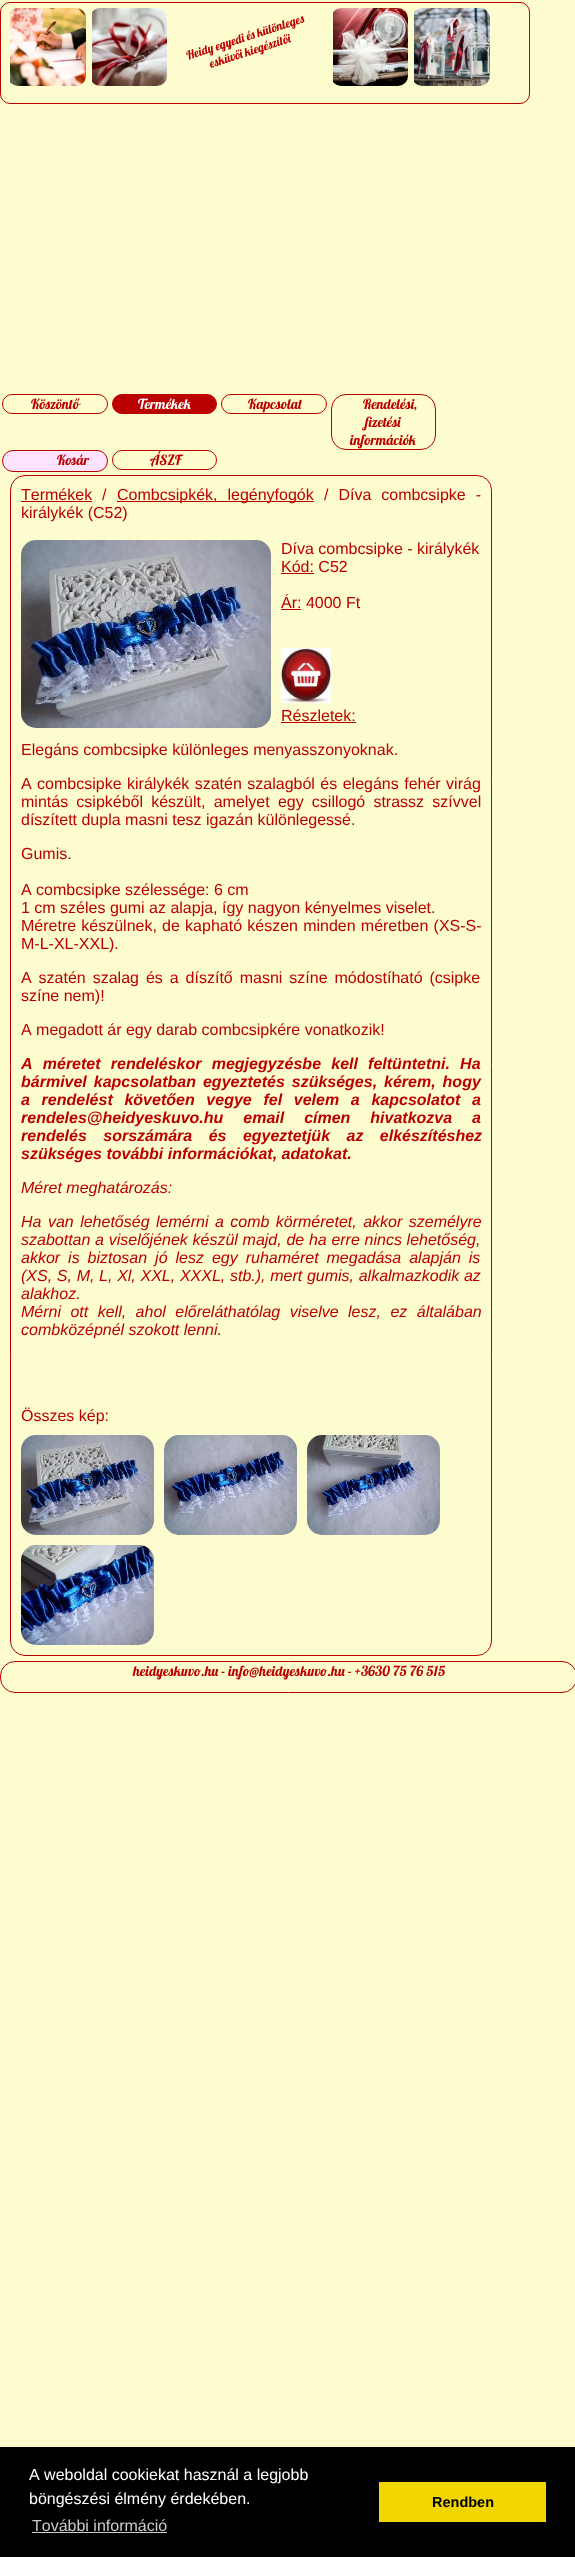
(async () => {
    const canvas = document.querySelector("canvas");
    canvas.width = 575;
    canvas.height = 2557;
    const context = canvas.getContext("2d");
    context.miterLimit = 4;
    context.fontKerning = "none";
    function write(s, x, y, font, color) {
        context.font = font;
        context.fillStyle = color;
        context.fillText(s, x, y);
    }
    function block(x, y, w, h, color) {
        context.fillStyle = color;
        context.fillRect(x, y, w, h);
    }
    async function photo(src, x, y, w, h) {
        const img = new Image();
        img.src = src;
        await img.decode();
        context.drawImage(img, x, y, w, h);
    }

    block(0, 0, 575, 2557, "rgb(252, 252, 207)");
    context.beginPath();
    context.roundRect(0.5, 2.5, 529, 101, 9.5);
    context.strokeStyle = "rgb(186, 0, 0)";
    context.stroke();
    await photo("media/1.png", 10, 8, 76, 78);
    await photo("media/2.png", 92, 8, 75, 78);
    context.font = "12px Lobster";
    context.fillStyle = "rgb(186, 0, 0)";
    context.save();
    context.translate(188, 60);
    context.rotate(-18 * Math.PI / 180);
    context.fillText("Heidy egyedi és különleges", 0, 0);
    context.restore();
    context.save();
    context.translate(211, 68);
    context.rotate(-18 * Math.PI / 180);
    context.fillText("esküvői kiegészítői", 0, 0);
    context.restore();
    await photo("media/3.png", 333, 8, 75, 78);
    await photo("media/4.png", 414, 8, 76, 78);
    context.beginPath();
    context.roundRect(2.5, 394.5, 105, 19, 9.5);
    context.stroke();
    write("Köszöntő", 31, 409, "14px Lobster", "rgb(186, 0, 0)");
    context.beginPath();
    context.roundRect(112.5, 394.5, 104, 19, 9.5);
    context.fill();
    context.stroke();
    write("Termékek", 138, 409, "14px Lobster", "rgb(255, 255, 255)");
    context.beginPath();
    context.roundRect(221.5, 394.5, 105, 19, 9.5);
    context.stroke();
    write("Kapcsolat", 248, 409, "14px Lobster", "rgb(186, 0, 0)");
    context.beginPath();
    context.roundRect(331.5, 394.5, 104, 55, 14.5);
    context.stroke();
    write("Rendelési,", 363, 409, "14px Lobster", "rgb(186, 0, 0)");
    write("fizetési", 365, 427, "14px Lobster", "rgb(186, 0, 0)");
    write("információk", 350, 445, "14px Lobster", "rgb(186, 0, 0)");
    context.fillStyle = "rgb(255, 227, 254)";
    context.beginPath();
    context.roundRect(2.5, 450.5, 105, 21, 10.5);
    context.fill();
    context.stroke();
    write("Kosár", 57, 465, "14px Lobster", "rgb(186, 0, 0)");
    context.beginPath();
    context.roundRect(112.5, 450.5, 104, 19, 9.5);
    context.stroke();
    write("ÁSZF", 150, 465, "14px Lobster", "rgb(186, 0, 0)");
    context.beginPath();
    context.roundRect(10.5, 475.5, 481, 1180, 14.5);
    context.stroke();
    write("Termékek", 21, 500, "16px Liberation Sans", "rgb(186, 0, 0)");
    block(21, 501, 71, 1, "rgb(186, 0, 0)");
    write("/", 102, 500, "16px Liberation Sans", "rgb(186, 0, 0)");
    block(117, 501, 197, 1, "rgb(186, 0, 0)");
    context.wordSpacing = "5.5px";
    write("Combcsipkék, legényfogók", 117, 500, "16px Liberation Sans", "rgb(186, 0, 0)");
    write("/ Díva combcsipke -", 324, 500, "16px Liberation Sans", "rgb(186, 0, 0)");
    context.wordSpacing = "0px";
    write("királykék (C52)", 21, 518, "16px Liberation Sans", "rgb(186, 0, 0)");
    await photo("media/5.png", 21, 540, 250, 188);
    write("Díva combcsipke - királykék", 281, 554, "16px Liberation Sans", "rgb(186, 0, 0)");
    write("Kód: C52", 281, 572, "16px Liberation Sans", "rgb(186, 0, 0)");
    block(281, 573, 33, 1, "rgb(186, 0, 0)");
    write("Ár: 4000 Ft", 281, 608, "16px Liberation Sans", "rgb(186, 0, 0)");
    block(281, 609, 20, 1, "rgb(186, 0, 0)");
    await photo("media/6.png", 281, 648, 50, 55);
    write("Részletek:", 281, 721, "16px Liberation Sans", "rgb(186, 0, 0)");
    block(281, 722, 75, 1, "rgb(186, 0, 0)");
    write("Elegáns combcsipke különleges menyasszonyoknak.", 21, 755, "16px Liberation Sans", "rgb(186, 0, 0)");
    context.wordSpacing = "1px";
    write("A combcsipke királykék szatén szalagból és elegáns fehér virág", 21, 789, "16px Liberation Sans", "rgb(186, 0, 0)");
    context.wordSpacing = "3.75px";
    write("mintás csipkéből készült, amelyet egy csillogó strassz szívvel", 21, 807, "16px Liberation Sans", "rgb(186, 0, 0)");
    context.wordSpacing = "0px";
    write("díszített dupla masni tesz igazán különlegessé.", 21, 825, "16px Liberation Sans", "rgb(186, 0, 0)");
    write("Gumis.", 21, 859, "16px Liberation Sans", "rgb(186, 0, 0)");
    write("A combcsipke szélessége: 6 cm", 21, 895, "16px Liberation Sans", "rgb(186, 0, 0)");
    write("1 cm széles gumi az alapja, így nagyon kényelmes viselet.", 21, 913, "16px Liberation Sans", "rgb(186, 0, 0)");
    context.wordSpacing = "0.75px";
    write("Méretre készülnek, de kapható készen minden méretben (XS-S-", 21, 931, "16px Liberation Sans", "rgb(186, 0, 0)");
    context.wordSpacing = "0px";
    write("M-L-XL-XXL).", 21, 949, "16px Liberation Sans", "rgb(186, 0, 0)");
    context.wordSpacing = "2.5px";
    write("A szatén szalag és a díszítő masni színe módostíható (csipke", 21, 983, "16px Liberation Sans", "rgb(186, 0, 0)");
    context.wordSpacing = "0px";
    write("színe nem)!", 21, 1001, "16px Liberation Sans", "rgb(186, 0, 0)");
    write("A megadott ár egy darab combcsipkére vonatkozik!", 21, 1035, "16px Liberation Sans", "rgb(186, 0, 0)");
    context.wordSpacing = "5.75px";
    write("A méretet rendeléskor megjegyzésbe kell feltüntetni. Ha", 21, 1069, "italic bold 16px Liberation Sans", "rgb(186, 0, 0)");
    context.wordSpacing = "2.5px";
    write("bármivel kapcsolatban egyeztetés szükséges, kérem, hogy", 21, 1087, "italic bold 16px Liberation Sans", "rgb(186, 0, 0)");
    context.wordSpacing = "7.25px";
    write("a rendelést követően vegye fel velem a kapcsolatot a", 21, 1105, "italic bold 16px Liberation Sans", "rgb(186, 0, 0)");
    context.wordSpacing = "15.5px";
    write("rendeles@heidyeskuvo.hu email címen hivatkozva a", 21, 1123, "italic bold 16px Liberation Sans", "rgb(186, 0, 0)");
    context.wordSpacing = "12px";
    write("rendelés sorszámára és egyeztetjük az elkészítéshez", 21, 1141, "italic bold 16px Liberation Sans", "rgb(186, 0, 0)");
    context.wordSpacing = "0px";
    write("szükséges további információkat, adatokat.", 21, 1159, "italic bold 16px Liberation Sans", "rgb(186, 0, 0)");
    write("Méret meghatározás:", 21, 1193, "italic 16px Liberation Sans", "rgb(186, 0, 0)");
    context.wordSpacing = "2px";
    write("Ha van lehetőség lemérni a comb körméretet, akkor személyre", 21, 1227, "italic 16px Liberation Sans", "rgb(186, 0, 0)");
    context.wordSpacing = "0.25px";
    write("szabottan a viselőjének készül majd, de ha erre nincs lehetőség,", 21, 1245, "italic 16px Liberation Sans", "rgb(186, 0, 0)");
    context.wordSpacing = "3.5px";
    write("akkor is biztosan jó lesz egy ruhaméret megadása alapján is", 21, 1263, "italic 16px Liberation Sans", "rgb(186, 0, 0)");
    context.wordSpacing = "0.25px";
    write("(XS, S, M, L, Xl, XXL, XXXL, stb.), mert gumis, alkalmazkodik az", 21, 1281, "italic 16px Liberation Sans", "rgb(186, 0, 0)");
    context.wordSpacing = "0px";
    write("alakhoz.", 21, 1299, "italic 16px Liberation Sans", "rgb(186, 0, 0)");
    context.wordSpacing = "5px";
    write("Mérni ott kell, ahol előreláthatólag viselve lesz, ez általában", 21, 1317, "italic 16px Liberation Sans", "rgb(186, 0, 0)");
    context.wordSpacing = "0px";
    write("combközépnél szokott lenni.", 21, 1335, "italic 16px Liberation Sans", "rgb(186, 0, 0)");
    write("Összes kép:", 21, 1421, "16px Liberation Sans", "rgb(186, 0, 0)");
    await photo("media/7.png", 21, 1435, 133, 100);
    await photo("media/8.png", 164, 1435, 133, 100);
    await photo("media/9.png", 307, 1435, 133, 100);
    await photo("media/10.png", 21, 1545, 133, 100);
    context.beginPath();
    context.roundRect(0.5, 1661.5, 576, 31, 14.5);
    context.stroke();
    write("heidyeskuvo.hu - info@heidyeskuvo.hu - +3630 75 76 515", 133, 1676, "14px Lobster", "rgb(186, 0, 0)");
    block(0, 2447, 575, 110, "rgb(0, 0, 0)");
    write("A weboldal cookiekat használ a legjobb", 29, 2480, "16px Liberation Sans", "rgb(255, 255, 255)");
    write("böngészési élmény érdekében.", 29, 2504, "16px Liberation Sans", "rgb(255, 255, 255)");
    write("További információ", 32, 2531, "16px Liberation Sans", "rgb(204, 204, 204)");
    block(32, 2532, 135, 1, "rgb(204, 204, 204)");
    block(379, 2482, 167, 40, "rgb(241, 214, 0)");
    write("Rendben", 432, 2507, "bold 14.5px Liberation Sans", "rgb(0, 0, 0)");
})();
